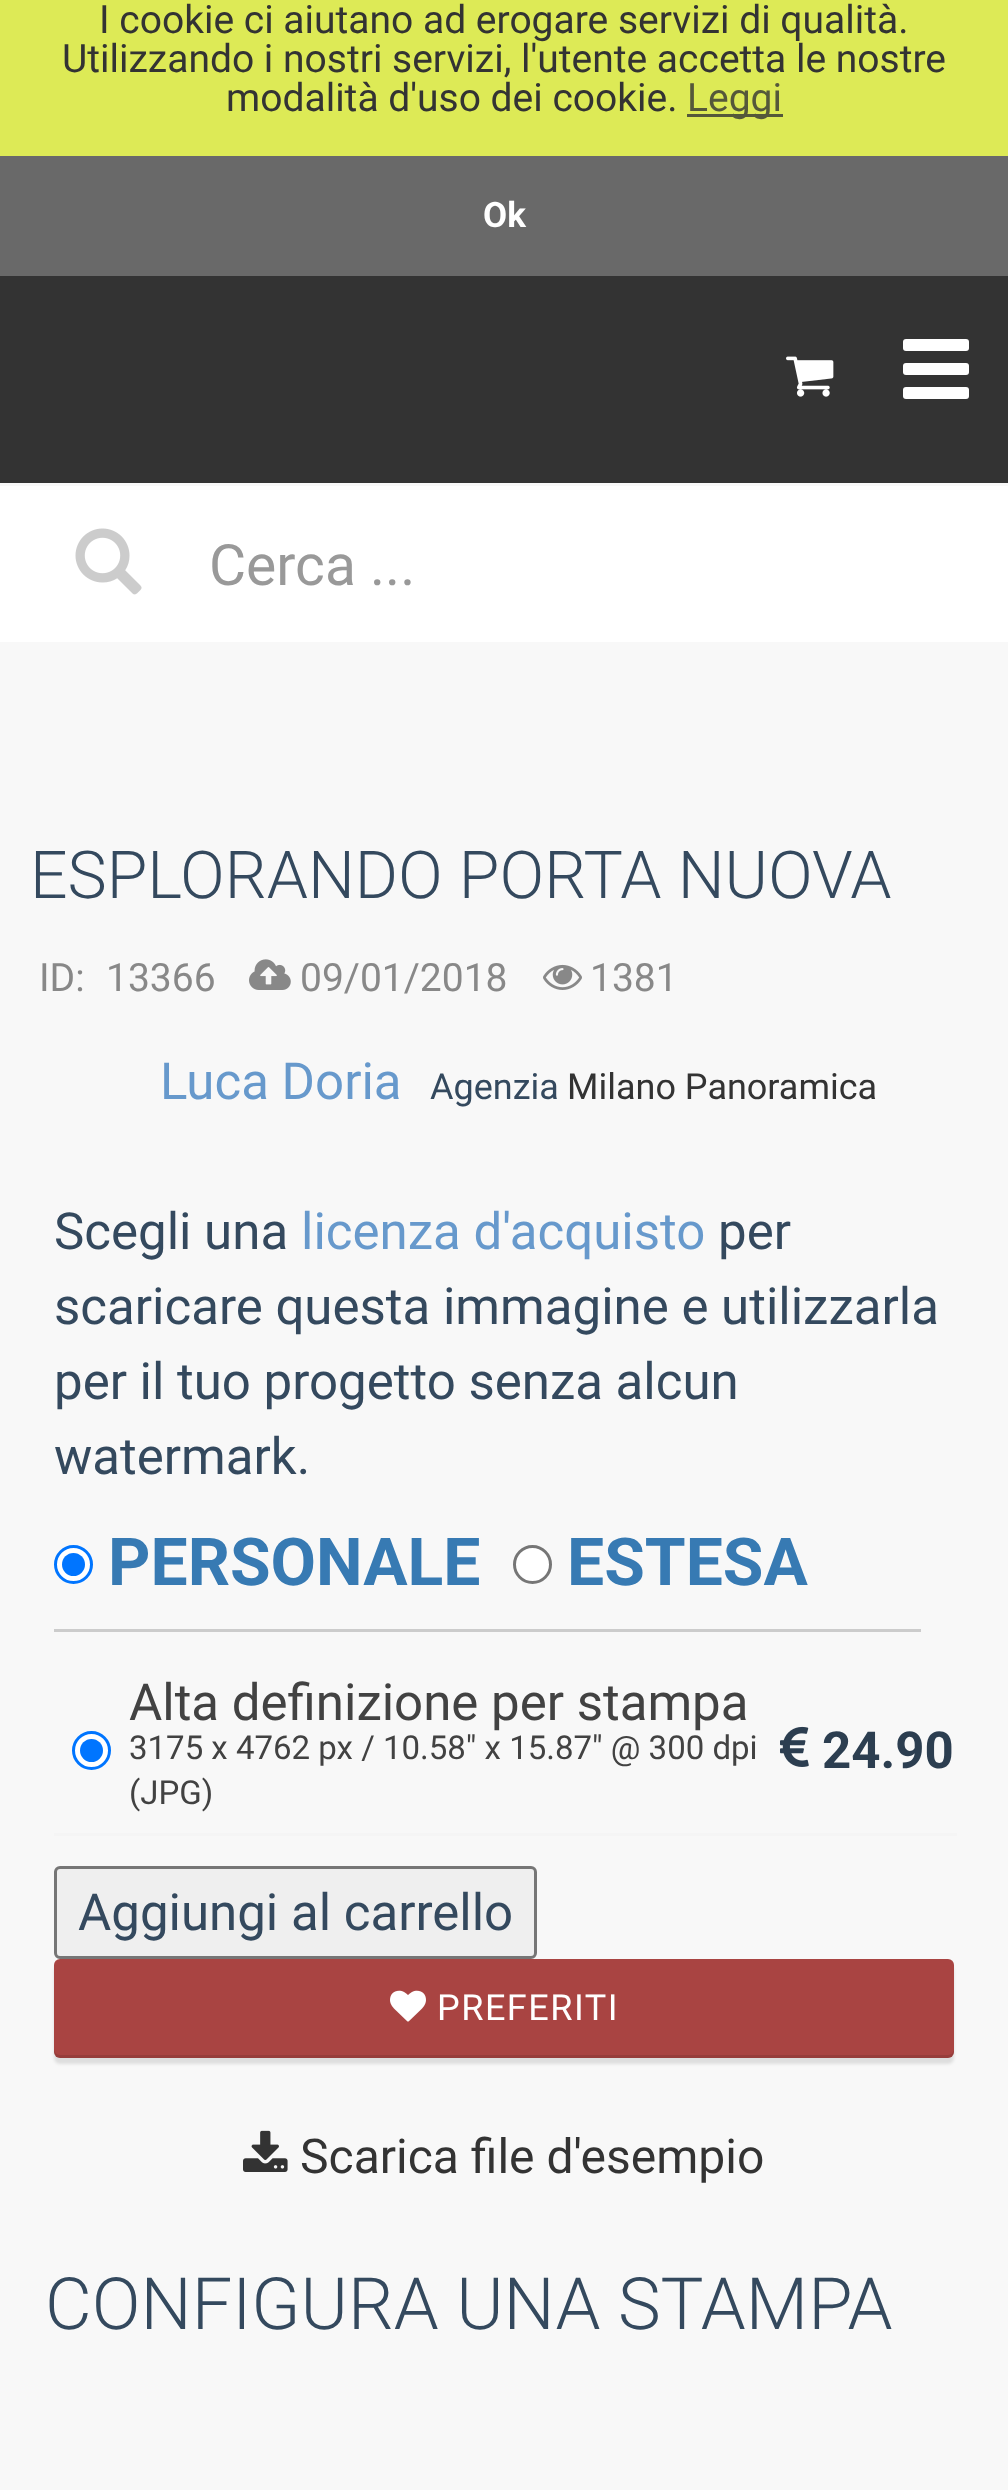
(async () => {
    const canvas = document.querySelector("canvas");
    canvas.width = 1008;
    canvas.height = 2490;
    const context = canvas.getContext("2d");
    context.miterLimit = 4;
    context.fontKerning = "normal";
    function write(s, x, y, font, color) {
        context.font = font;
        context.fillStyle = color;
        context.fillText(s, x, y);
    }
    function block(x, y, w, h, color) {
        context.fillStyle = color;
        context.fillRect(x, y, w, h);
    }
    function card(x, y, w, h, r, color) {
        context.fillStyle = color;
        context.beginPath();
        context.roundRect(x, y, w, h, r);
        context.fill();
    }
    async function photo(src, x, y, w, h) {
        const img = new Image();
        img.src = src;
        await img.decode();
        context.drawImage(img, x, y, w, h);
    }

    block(0, 0, 1008, 2490, "rgb(248, 248, 248)");
    block(0, 0, 1008, 156, "rgb(221, 234, 86)");
    write("I cookie ci aiutano ad erogare servizi di qualità.", 99, 33, "39px Roboto", "rgb(51, 51, 51)");
    write("Utilizzando i nostri servizi, l'utente accetta le nostre", 62, 72, "39px Roboto", "rgb(51, 51, 51)");
    write("modalità d'uso dei cookie.", 226, 111, "39px Roboto", "rgb(51, 51, 51)");
    block(687, 114, 96, 3, "rgb(85, 88, 58)");
    write("Leggi", 687, 111, "39px Roboto", "rgb(85, 88, 58)");
    block(0, 156, 1008, 120, "rgb(105, 105, 105)");
    write("Ok", 483, 227, "bold 35px Roboto", "rgb(255, 255, 255)");
    block(0, 276, 1008, 207, "rgb(51, 51, 51)");
    await photo("media/1.png", 786, 356, 48, 41);
    card(903, 339, 66, 12, 3, "rgb(255, 255, 255)");
    card(903, 363, 66, 12, 3, "rgb(255, 255, 255)");
    card(903, 387, 66, 12, 3, "rgb(255, 255, 255)");
    block(0, 486, 1008, 156, "rgb(255, 255, 255)");
    await photo("media/2.png", 75, 528, 67, 67);
    write("Cerca ...", 209, 585, "57px Roboto", "rgb(153, 153, 153)");
    write("ESPLORANDO PORTA NUOVA", 30, 898, "300 66px Roboto", "rgb(52, 73, 94)");
    write("ID:", 39, 991, "39px Roboto", "rgb(136, 136, 136)");
    write("13366", 106, 991, "39px Roboto", "rgb(136, 136, 136)");
    await photo("media/3.png", 249, 959, 42, 31);
    write("09/01/2018", 300, 991, "39px Roboto", "rgb(136, 136, 136)");
    await photo("media/4.png", 543, 964, 39, 26);
    write("1381", 590, 991, "39px Roboto", "rgb(136, 136, 136)");
    write("Luca Doria", 160, 1099, "51px Roboto", "rgb(103, 153, 204)");
    write("Agenzia", 430, 1099, "36px Roboto", "rgb(52, 73, 94)");
    write("Milano Panoramica", 567, 1099, "36px Roboto", "rgb(51, 51, 51)");
    write("Scegli una", 54, 1249, "51px Roboto", "rgb(52, 73, 94)");
    write("licenza d'acquisto", 301, 1249, "51px Roboto", "rgb(103, 153, 204)");
    write("per", 718, 1249, "51px Roboto", "rgb(52, 73, 94)");
    write("scaricare questa immagine e utilizzarla", 54, 1324, "51px Roboto", "rgb(52, 73, 94)");
    write("per il tuo progetto senza alcun", 54, 1399, "51px Roboto", "rgb(52, 73, 94)");
    write("watermark.", 54, 1474, "51px Roboto", "rgb(52, 73, 94)");
    block(54, 1629, 867, 3, "rgb(204, 204, 204)");
    context.fillStyle = "rgb(255, 255, 255)";
    context.beginPath();
    context.arc(73.5, 1564.5, 18, 0, Math.PI * 2);
    context.fill();
    context.strokeStyle = "rgb(0, 117, 255)";
    context.lineWidth = 3;
    context.stroke();
    context.fillStyle = "rgb(0, 117, 255)";
    context.beginPath();
    context.arc(73.5, 1564.5, 11.5, 0, Math.PI * 2);
    context.fill();
    write("PERSONALE", 108, 1585, "bold 66px Roboto", "rgb(55, 122, 179)");
    context.fillStyle = "rgb(255, 255, 255)";
    context.beginPath();
    context.arc(532.5, 1564.5, 18, 0, Math.PI * 2);
    context.fill();
    context.strokeStyle = "rgb(118, 118, 118)";
    context.stroke();
    write("ESTESA", 567, 1585, "bold 66px Roboto", "rgb(55, 122, 179)");
    context.fillStyle = "rgb(255, 255, 255)";
    context.beginPath();
    context.arc(91.5, 1750.5, 18, 0, Math.PI * 2);
    context.fill();
    context.strokeStyle = "rgb(0, 117, 255)";
    context.stroke();
    context.fillStyle = "rgb(0, 117, 255)";
    context.beginPath();
    context.arc(91.5, 1750.5, 11.5, 0, Math.PI * 2);
    context.fill();
    write("Alta definizione per stampa", 129, 1720, "51px Roboto", "rgb(66, 66, 66)");
    write("3175 x 4762 px / 10.58\" x 15.87\" @ 300 dpi", 129, 1759, "33px Roboto", "rgb(66, 66, 66)");
    write("(JPG)", 129, 1804, "33px Roboto", "rgb(66, 66, 66)");
    block(54, 1833, 903, 3, "rgb(245, 245, 245)");
    await photo("media/5.png", 780, 1726, 29, 41);
    write("24.90", 822, 1768, "bold 51px Roboto", "rgb(44, 62, 80)");
    context.fillStyle = "rgb(239, 239, 239)";
    context.beginPath();
    context.roundRect(55.5, 1867.5, 480, 90, 4.5);
    context.fill();
    context.strokeStyle = "rgb(118, 118, 118)";
    context.stroke();
    write("Aggiungi al carrello", 78, 1930, "51px Roboto", "rgb(52, 73, 94)");
    context.fillStyle = "rgba(0, 0, 0, 0.1)";
    context.filter = "blur(1.5px)";
    context.beginPath();
    context.roundRect(54, 1965, 900, 99, 6);
    context.fill();
    context.filter = "none";
    card(54, 1959, 900, 99, 6, "rgb(169, 68, 66)");
    context.fillStyle = "rgba(0, 0, 0, 0.1)";
    context.beginPath();
    context.moveTo(54, 2049);
    context.lineTo(54, 2052);
    context.bezierCurveTo(54, 2055, 57, 2058, 60, 2058);
    context.lineTo(948, 2058);
    context.bezierCurveTo(951, 2058, 954, 2055, 954, 2052);
    context.lineTo(954, 2049);
    context.bezierCurveTo(954, 2052, 951, 2055, 948, 2055);
    context.lineTo(60, 2055);
    context.bezierCurveTo(57, 2055, 54, 2052, 54, 2049);
    context.closePath();
    context.fill();
    await photo("media/6.png", 390, 1990, 36, 32);
    context.letterSpacing = "1.5px";
    write("PREFERITI", 437, 2020, "36px Roboto", "rgb(255, 255, 255)");
    await photo("media/7.png", 243, 2130, 45, 42);
    context.letterSpacing = "0px";
    write("Scarica file d'esempio", 300, 2173, "48px Roboto", "rgb(51, 51, 51)");
    write("CONFIGURA UNA STAMPA", 45, 2329, "300 72px Roboto", "rgb(52, 73, 94)");
})();
